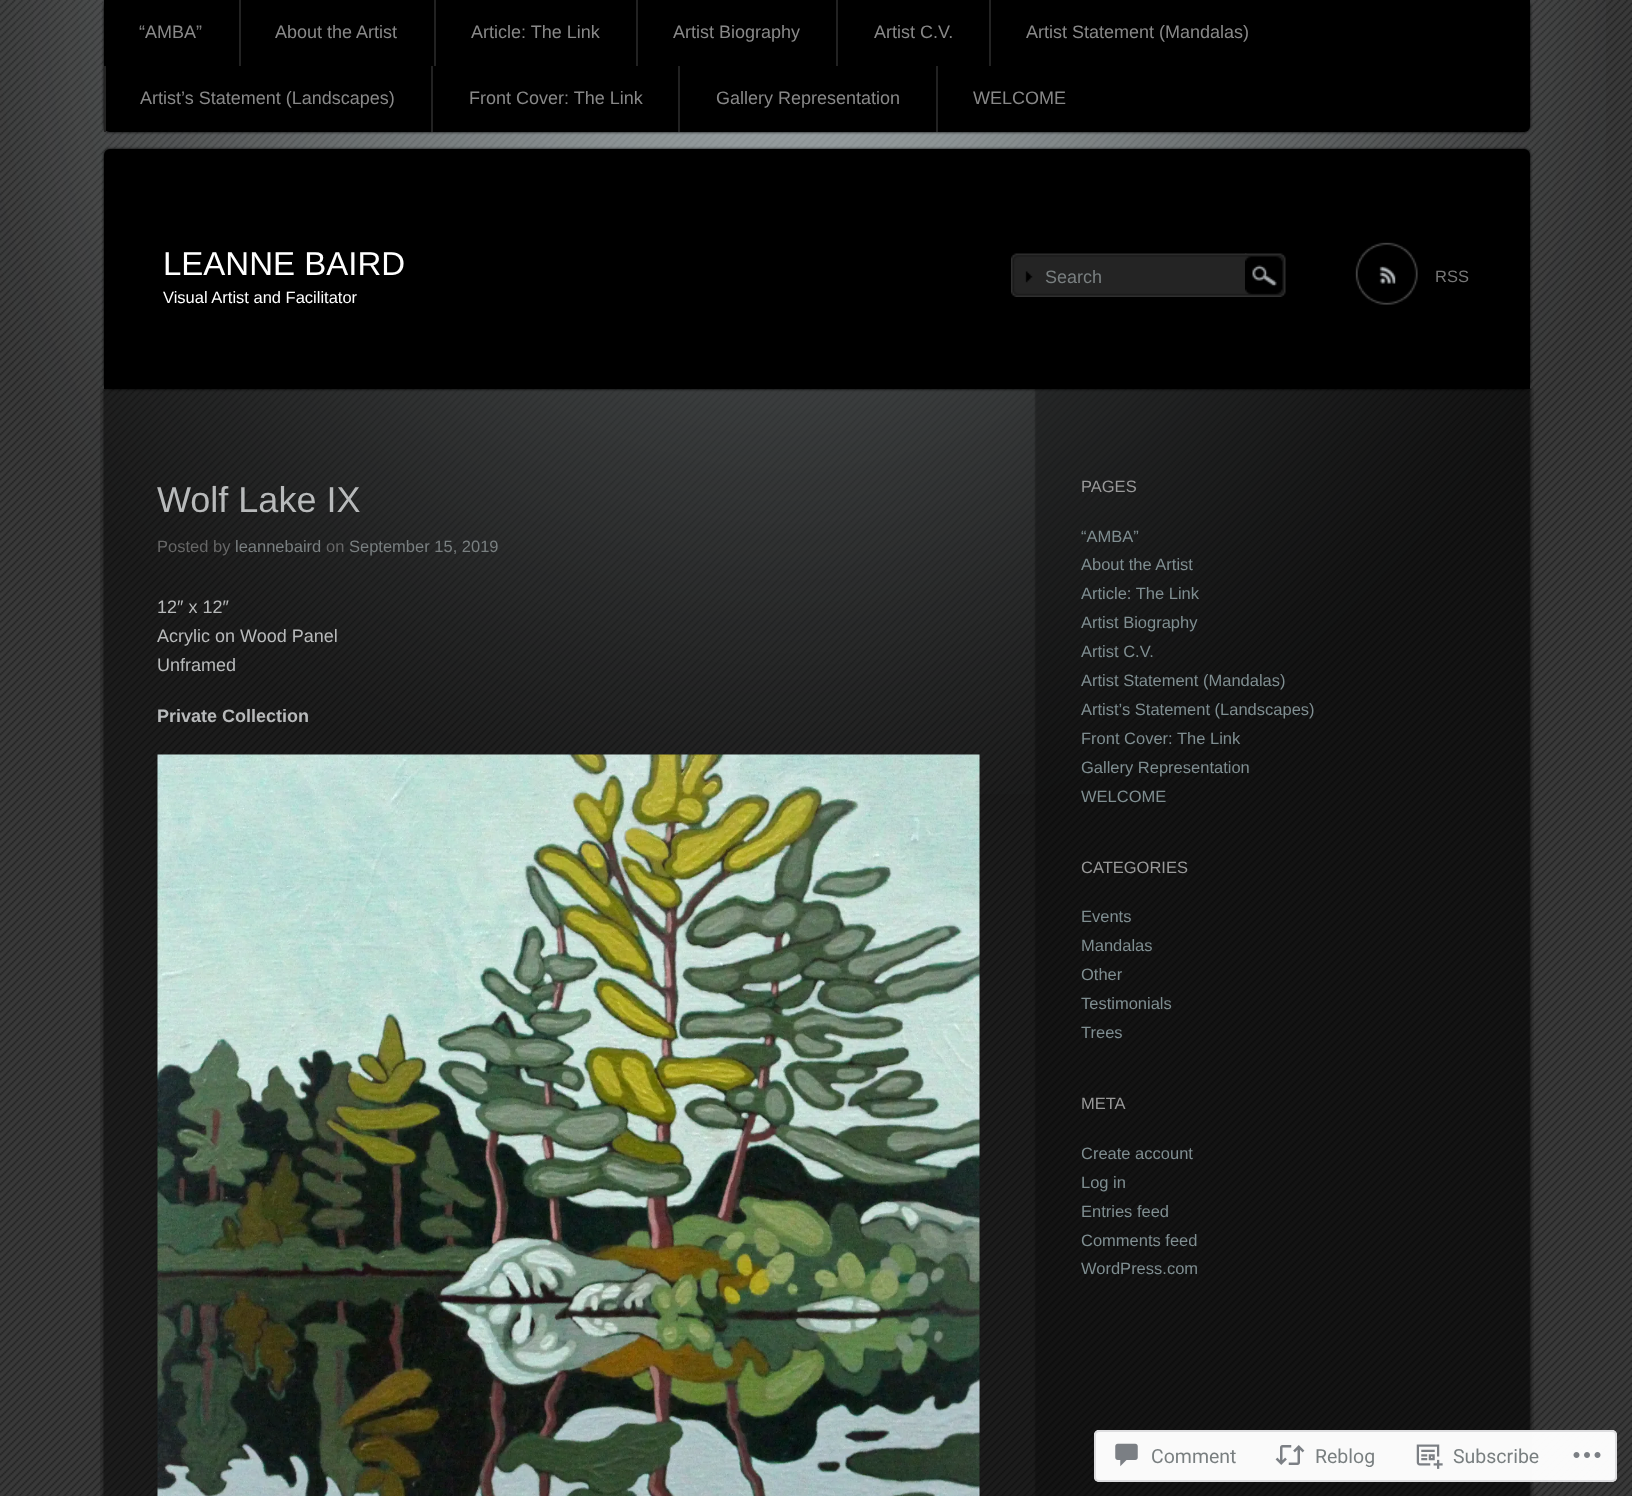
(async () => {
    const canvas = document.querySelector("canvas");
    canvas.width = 1632;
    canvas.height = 1496;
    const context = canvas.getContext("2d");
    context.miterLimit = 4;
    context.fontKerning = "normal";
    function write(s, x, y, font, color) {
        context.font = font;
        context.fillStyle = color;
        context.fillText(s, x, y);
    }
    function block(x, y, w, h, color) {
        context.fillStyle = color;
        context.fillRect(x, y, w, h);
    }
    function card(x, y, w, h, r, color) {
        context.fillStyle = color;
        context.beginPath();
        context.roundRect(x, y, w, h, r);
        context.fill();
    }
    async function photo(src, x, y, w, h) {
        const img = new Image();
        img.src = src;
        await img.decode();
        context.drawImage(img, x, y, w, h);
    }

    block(0, 0, 1632, 1496, "rgb(255, 255, 255)");
    await photo("media/1.png", 0, 0, 1632, 1496);
    await photo("media/2.png", 0, 0, 1606, 794);
    context.fillStyle = "rgb(0, 0, 0)";
    context.filter = "blur(1.5px)";
    context.beginPath();
    context.roundRect(104, 0, 1426, 132, 6);
    context.fill();
    context.filter = "none";
    context.beginPath();
    context.roundRect(104, 0, 1426, 132, [0, 0, 6, 6]);
    context.fill();
    write("“AMBA”", 139, 38, "18px Liberation Sans", "rgb(136, 136, 136)");
    block(239, 0, 2, 66, "rgb(34, 34, 34)");
    write("About the Artist", 275, 38, "18px Liberation Sans", "rgb(136, 136, 136)");
    block(434, 0, 2, 66, "rgb(34, 34, 34)");
    write("Article: The Link", 471, 38, "18px Liberation Sans", "rgb(136, 136, 136)");
    block(636, 0, 2, 66, "rgb(34, 34, 34)");
    write("Artist Biography", 673, 38, "18px Liberation Sans", "rgb(136, 136, 136)");
    block(836, 0, 2, 66, "rgb(34, 34, 34)");
    write("Artist C.V.", 874, 38, "18px Liberation Sans", "rgb(136, 136, 136)");
    block(989, 0, 2, 66, "rgb(34, 34, 34)");
    write("Artist Statement (Mandalas)", 1026, 38, "18px Liberation Sans", "rgb(136, 136, 136)");
    block(104, 66, 2, 66, "rgb(34, 34, 34)");
    write("Artist’s Statement (Landscapes)", 140, 104, "18px Liberation Sans", "rgb(136, 136, 136)");
    block(431, 66, 2, 66, "rgb(34, 34, 34)");
    write("Front Cover: The Link", 469, 104, "18px Liberation Sans", "rgb(136, 136, 136)");
    block(678, 66, 2, 66, "rgb(34, 34, 34)");
    write("Gallery Representation", 716, 104, "18px Liberation Sans", "rgb(136, 136, 136)");
    block(936, 66, 2, 66, "rgb(34, 34, 34)");
    write("WELCOME", 973, 104, "18px Liberation Sans", "rgb(136, 136, 136)");
    await photo("media/6.png", 100, 388, 1434, 1108);
    context.fillStyle = "rgb(0, 0, 0)";
    context.filter = "blur(1.5px)";
    context.beginPath();
    context.roundRect(104, 149, 1426, 240, 6);
    context.fill();
    context.filter = "none";
    context.beginPath();
    context.roundRect(104, 149, 1426, 240, [6, 6, 0, 0]);
    context.fill();
    write("LEANNE BAIRD", 163, 275, "33px Liberation Sans", "rgb(255, 255, 255)");
    write("Visual Artist and Facilitator", 163, 303, "16.5px Liberation Sans", "rgb(255, 255, 255)");
    await photo("media/3.png", 1011, 253, 236, 44);
    write("Search", 1045, 283, "18px Liberation Sans", "rgb(121, 127, 128)");
    await photo("media/4.png", 1245, 253, 41, 44);
    await photo("media/5.png", 1355, 242, 63, 63);
    write("RSS", 1435, 282, "16.5px Liberation Sans", "rgb(119, 119, 119)");
    write("Wolf Lake IX", 157, 512, "36px Liberation Sans", "rgb(184, 186, 187)");
    write("Posted by", 157, 552, "16.5px Liberation Sans", "rgb(102, 102, 102)");
    write("leannebaird", 235, 552, "16.5px Liberation Sans", "rgb(121, 127, 128)");
    write("on", 326, 552, "16.5px Liberation Sans", "rgb(102, 102, 102)");
    write("September 15, 2019", 349, 552, "16.5px Liberation Sans", "rgb(121, 127, 128)");
    write("12″ x 12″", 157, 613, "18px Liberation Sans", "rgb(184, 186, 187)");
    write("Acrylic on Wood Panel", 157, 642, "18px Liberation Sans", "rgb(184, 186, 187)");
    write("Unframed", 157, 671, "18px Liberation Sans", "rgb(184, 186, 187)");
    write("Private Collection", 157, 722, "bold 18px Liberation Sans", "rgb(184, 186, 187)");
    await photo("media/7.png", 157, 754, 823, 742);
    write("PAGES", 1081, 492, "16.5px Liberation Sans", "rgb(153, 153, 153)");
    write("“AMBA”", 1081, 542, "16.5px Liberation Sans", "rgb(127, 142, 145)");
    write("About the Artist", 1081, 570, "16.5px Liberation Sans", "rgb(127, 142, 145)");
    write("Article: The Link", 1081, 599, "16.5px Liberation Sans", "rgb(127, 142, 145)");
    write("Artist Biography", 1081, 628, "16.5px Liberation Sans", "rgb(127, 142, 145)");
    write("Artist C.V.", 1081, 657, "16.5px Liberation Sans", "rgb(127, 142, 145)");
    write("Artist Statement (Mandalas)", 1081, 686, "16.5px Liberation Sans", "rgb(127, 142, 145)");
    write("Artist’s Statement (Landscapes)", 1081, 715, "16.5px Liberation Sans", "rgb(127, 142, 145)");
    write("Front Cover: The Link", 1081, 744, "16.5px Liberation Sans", "rgb(127, 142, 145)");
    write("Gallery Representation", 1081, 773, "16.5px Liberation Sans", "rgb(127, 142, 145)");
    write("WELCOME", 1081, 802, "16.5px Liberation Sans", "rgb(127, 142, 145)");
    write("CATEGORIES", 1081, 873, "16.5px Liberation Sans", "rgb(153, 153, 153)");
    write("Events", 1081, 922, "16.5px Liberation Sans", "rgb(127, 142, 145)");
    write("Mandalas", 1081, 951, "16.5px Liberation Sans", "rgb(127, 142, 145)");
    write("Other", 1081, 980, "16.5px Liberation Sans", "rgb(127, 142, 145)");
    write("Testimonials", 1081, 1009, "16.5px Liberation Sans", "rgb(127, 142, 145)");
    write("Trees", 1081, 1038, "16.5px Liberation Sans", "rgb(127, 142, 145)");
    write("META", 1081, 1109, "16.5px Liberation Sans", "rgb(153, 153, 153)");
    write("Create account", 1081, 1159, "16.5px Liberation Sans", "rgb(127, 142, 145)");
    write("Log in", 1081, 1188, "16.5px Liberation Sans", "rgb(127, 142, 145)");
    write("Entries feed", 1081, 1217, "16.5px Liberation Sans", "rgb(127, 142, 145)");
    write("Comments feed", 1081, 1246, "16.5px Liberation Sans", "rgb(127, 142, 145)");
    write("WordPress.com", 1081, 1274, "16.5px Liberation Sans", "rgb(127, 142, 145)");
    card(1094, 1430, 523, 52, 5, "rgba(255, 255, 255, 0.98)");
    context.beginPath();
    context.roundRect(1095, 1431, 521, 50, 4);
    context.strokeStyle = "rgba(220, 220, 222, 0.98)";
    context.lineWidth = 2;
    context.stroke();
    await photo("media/8.png", 1115, 1443, 23, 24);
    write("Comment", 1151, 1463, "19.5px Roboto", "rgb(121, 127, 128)");
    await photo("media/9.png", 1275, 1445, 30, 20);
    write("Reblog", 1315, 1463, "19.5px Roboto", "rgb(121, 127, 128)");
    await photo("media/10.png", 1416, 1444, 27, 25);
    write("Subscribe", 1453, 1463, "19.5px Roboto", "rgb(121, 127, 128)");
    await photo("media/11.png", 1573, 1452, 28, 6);
})();
